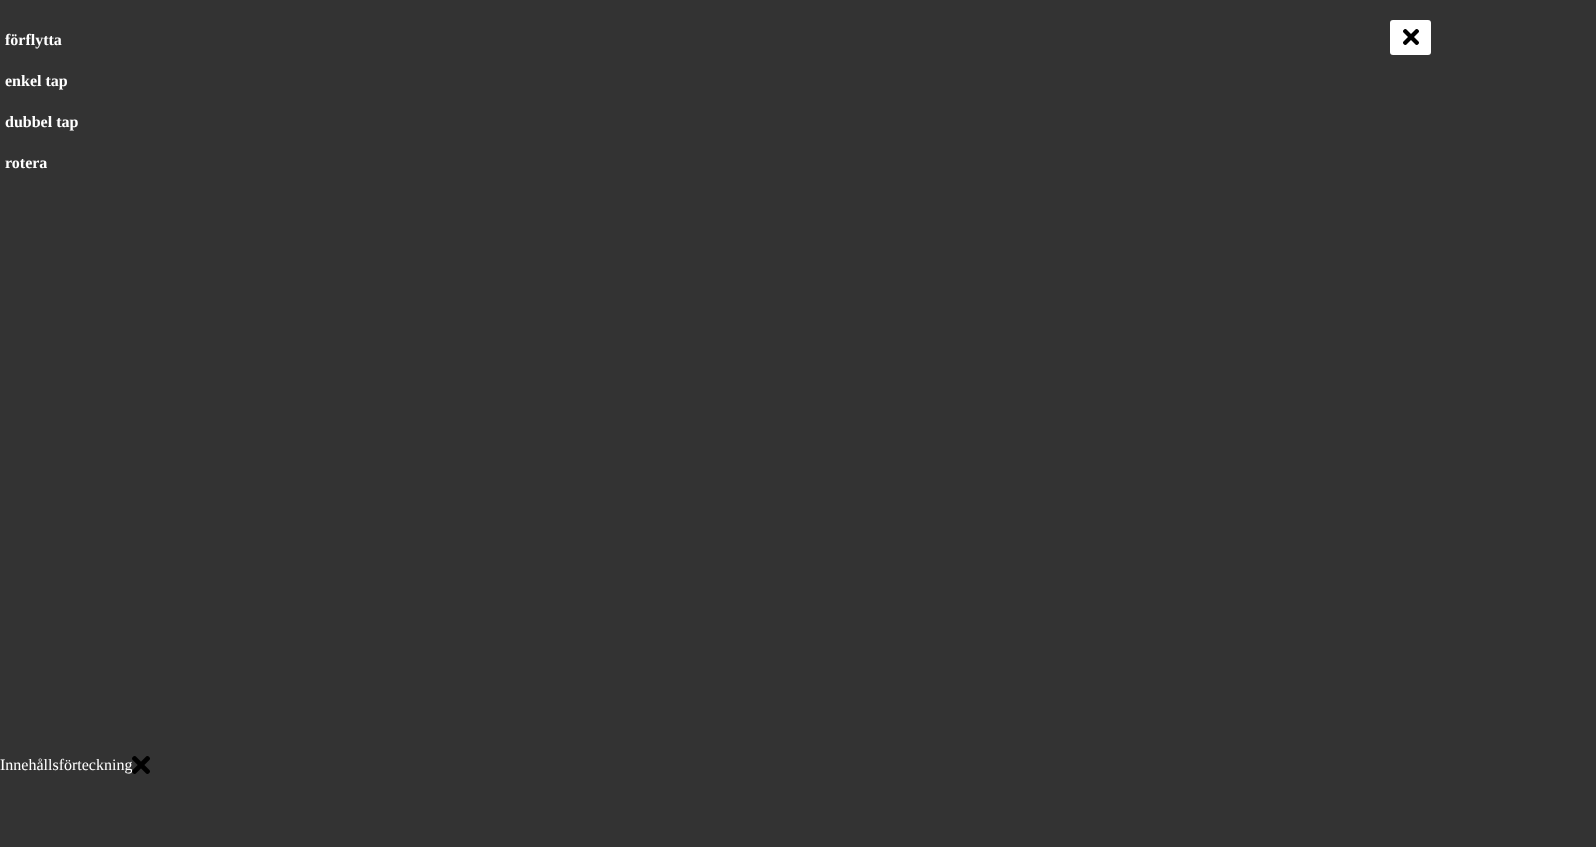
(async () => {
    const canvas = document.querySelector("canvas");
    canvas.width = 1596;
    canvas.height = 847;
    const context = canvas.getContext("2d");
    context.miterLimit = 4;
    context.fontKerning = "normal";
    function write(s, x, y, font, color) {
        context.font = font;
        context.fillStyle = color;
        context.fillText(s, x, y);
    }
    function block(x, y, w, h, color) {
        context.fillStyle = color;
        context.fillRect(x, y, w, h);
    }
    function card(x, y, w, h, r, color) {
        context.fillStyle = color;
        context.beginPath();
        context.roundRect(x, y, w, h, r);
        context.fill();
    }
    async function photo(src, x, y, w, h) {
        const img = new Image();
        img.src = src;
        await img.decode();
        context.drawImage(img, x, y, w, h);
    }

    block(0, 0, 1596, 847, "rgb(51, 51, 51)");
    write("förflytta", 5, 45, "bold 16px Liberation Serif", "rgb(255, 255, 255)");
    write("enkel tap", 5, 86, "bold 16px Liberation Serif", "rgb(255, 255, 255)");
    write("dubbel tap", 5, 127, "bold 16px Liberation Serif", "rgb(255, 255, 255)");
    write("rotera", 5, 168, "bold 16px Liberation Serif", "rgb(255, 255, 255)");
    card(1390, 20, 41, 35, 3, "rgb(255, 255, 255)");
    await photo("media/1.png", 1403, 29, 16, 16);
    write("Innehållsförteckning", 0, 770, "16px Liberation Serif", "rgb(255, 255, 255)");
    await photo("media/2.png", 132, 756, 18, 18);
})();
